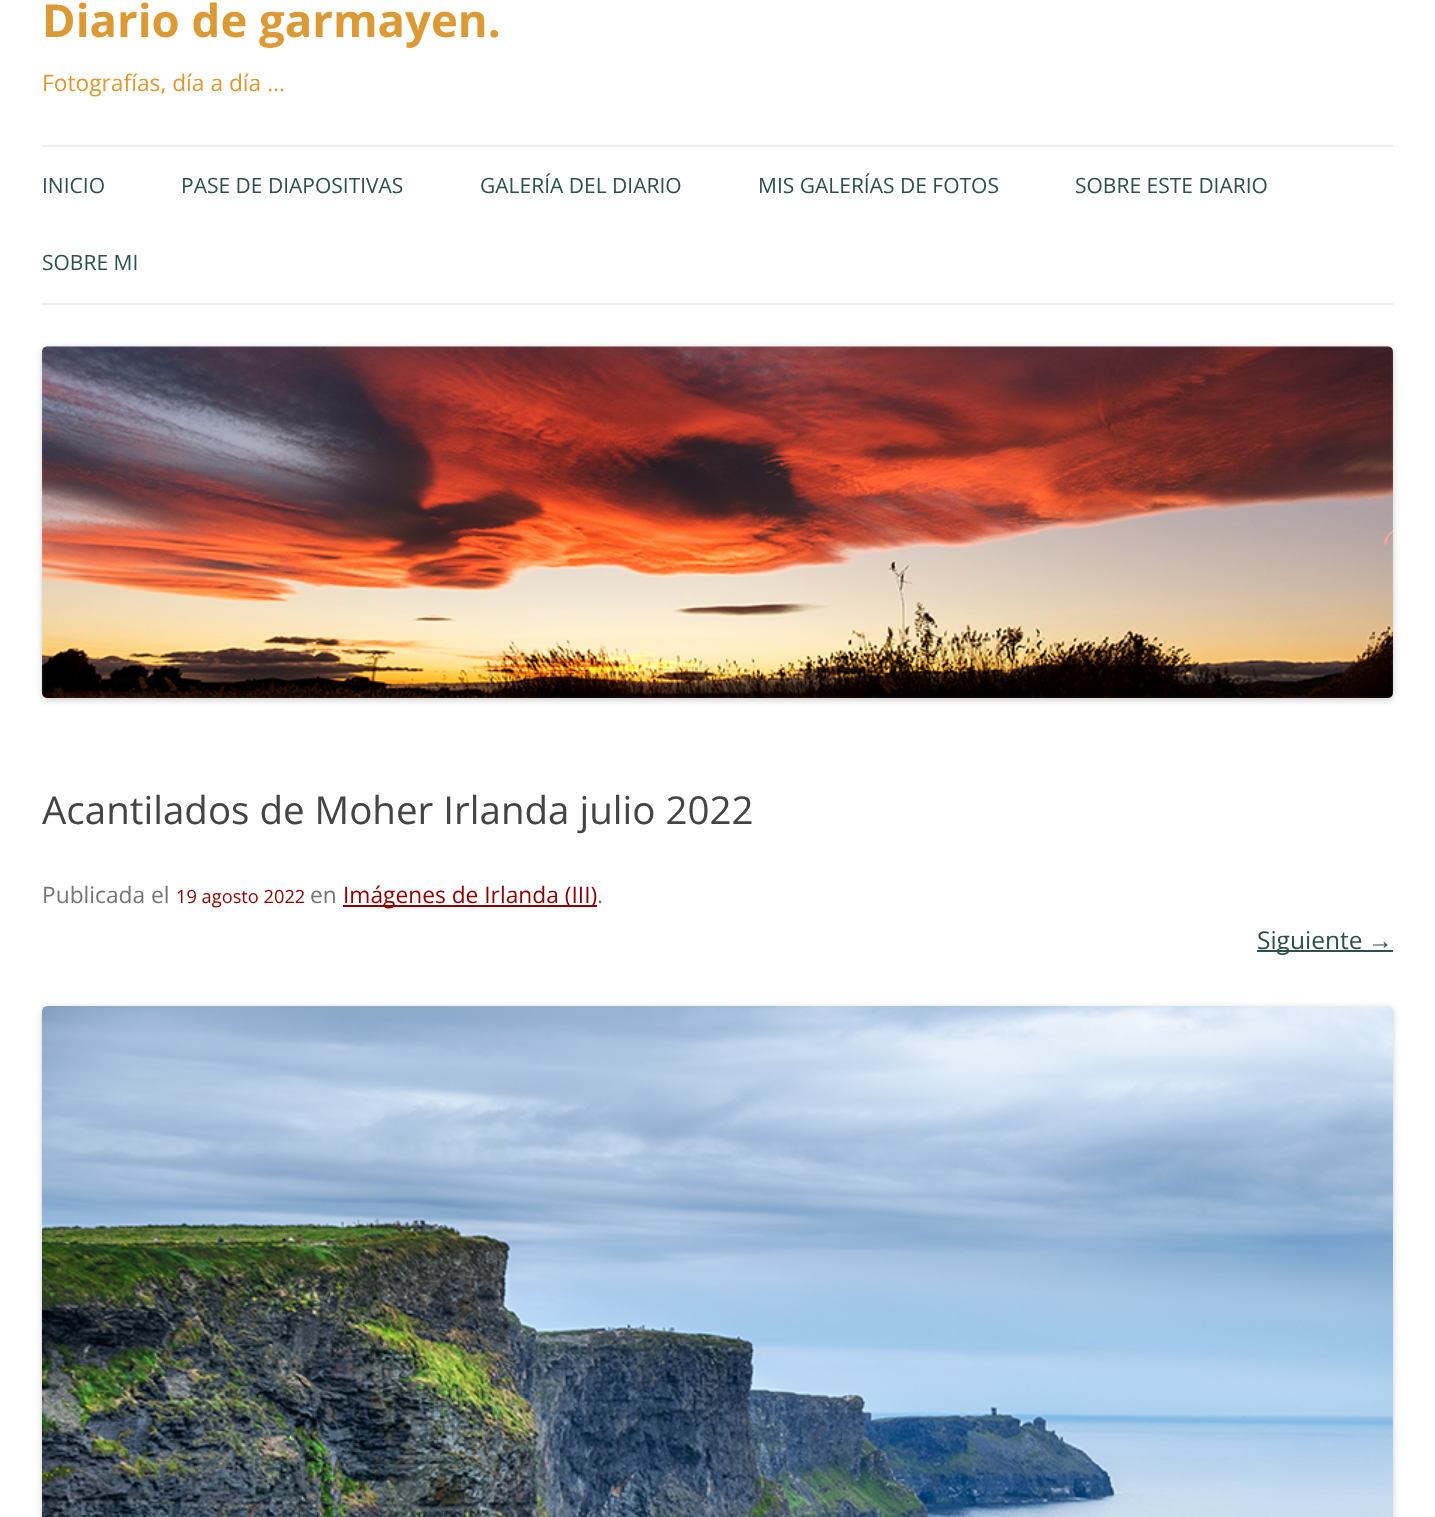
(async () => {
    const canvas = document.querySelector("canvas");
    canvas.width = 1435;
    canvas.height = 1517;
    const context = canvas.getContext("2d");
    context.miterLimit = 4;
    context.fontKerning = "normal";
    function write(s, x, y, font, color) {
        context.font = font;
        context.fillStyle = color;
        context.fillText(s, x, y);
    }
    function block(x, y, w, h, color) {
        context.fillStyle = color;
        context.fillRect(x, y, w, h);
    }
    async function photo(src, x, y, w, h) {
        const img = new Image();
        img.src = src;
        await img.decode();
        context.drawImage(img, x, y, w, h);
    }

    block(0, 0, 1435, 1517, "rgb(255, 255, 255)");
    write("Diario de garmayen.", 42, 37, "bold 45.5px Open Sans", "rgb(221, 153, 51)");
    write("Fotografías, día a día …", 42, 91, "22.75px Open Sans", "rgb(221, 153, 51)");
    block(42, 145, 1351, 2, "rgb(237, 237, 237)");
    block(42, 303, 1351, 2, "rgb(237, 237, 237)");
    write("INICIO", 42, 193, "21px Open Sans", "rgb(47, 79, 79)");
    write("PASE DE DIAPOSITIVAS", 181, 193, "21px Open Sans", "rgb(47, 79, 79)");
    write("GALERÍA DEL DIARIO", 480, 193, "21px Open Sans", "rgb(47, 79, 79)");
    write("MIS GALERÍAS DE FOTOS", 758, 193, "21px Open Sans", "rgb(47, 79, 79)");
    write("SOBRE ESTE DIARIO", 1075, 193, "21px Open Sans", "rgb(47, 79, 79)");
    write("SOBRE MI", 42, 270, "21px Open Sans", "rgb(47, 79, 79)");
    context.fillStyle = "rgba(0, 0, 0, 0.2)";
    context.filter = "blur(3.5px)";
    context.beginPath();
    context.roundRect(42, 348, 1351, 352, 5);
    context.fill();
    context.filter = "none";
    await photo("media/1.png", 42, 346, 1351, 352);
    write("Acantilados de Moher Irlanda julio 2022", 42, 824, "38.5px Open Sans", "rgb(68, 68, 68)");
    write("Publicada el", 42, 903, "22.75px Open Sans", "rgb(117, 117, 117)");
    write("19 agosto 2022", 176, 903, "18.25px Open Sans", "rgb(139, 0, 0)");
    write("en", 310, 903, "22.75px Open Sans", "rgb(117, 117, 117)");
    block(343, 905, 254, 2, "rgb(139, 0, 0)");
    write("Imágenes de Irlanda (III)", 343, 903, "22.75px Open Sans", "rgb(139, 0, 0)");
    write(".", 597, 903, "22.75px Open Sans", "rgb(117, 117, 117)");
    block(1257, 950, 136, 2, "rgb(47, 79, 79)");
    write("Siguiente", 1257, 949, "24.5px Open Sans", "rgb(47, 79, 79)");
    write("→", 1368, 949, "24.5px Liberation Sans", "rgb(47, 79, 79)");
    context.fillStyle = "rgba(0, 0, 0, 0.2)";
    context.filter = "blur(3.5px)";
    context.beginPath();
    context.roundRect(42, 1008, 1351, 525, 5);
    context.fill();
    context.filter = "none";
    await photo("media/2.png", 42, 1006, 1351, 511);
})();
